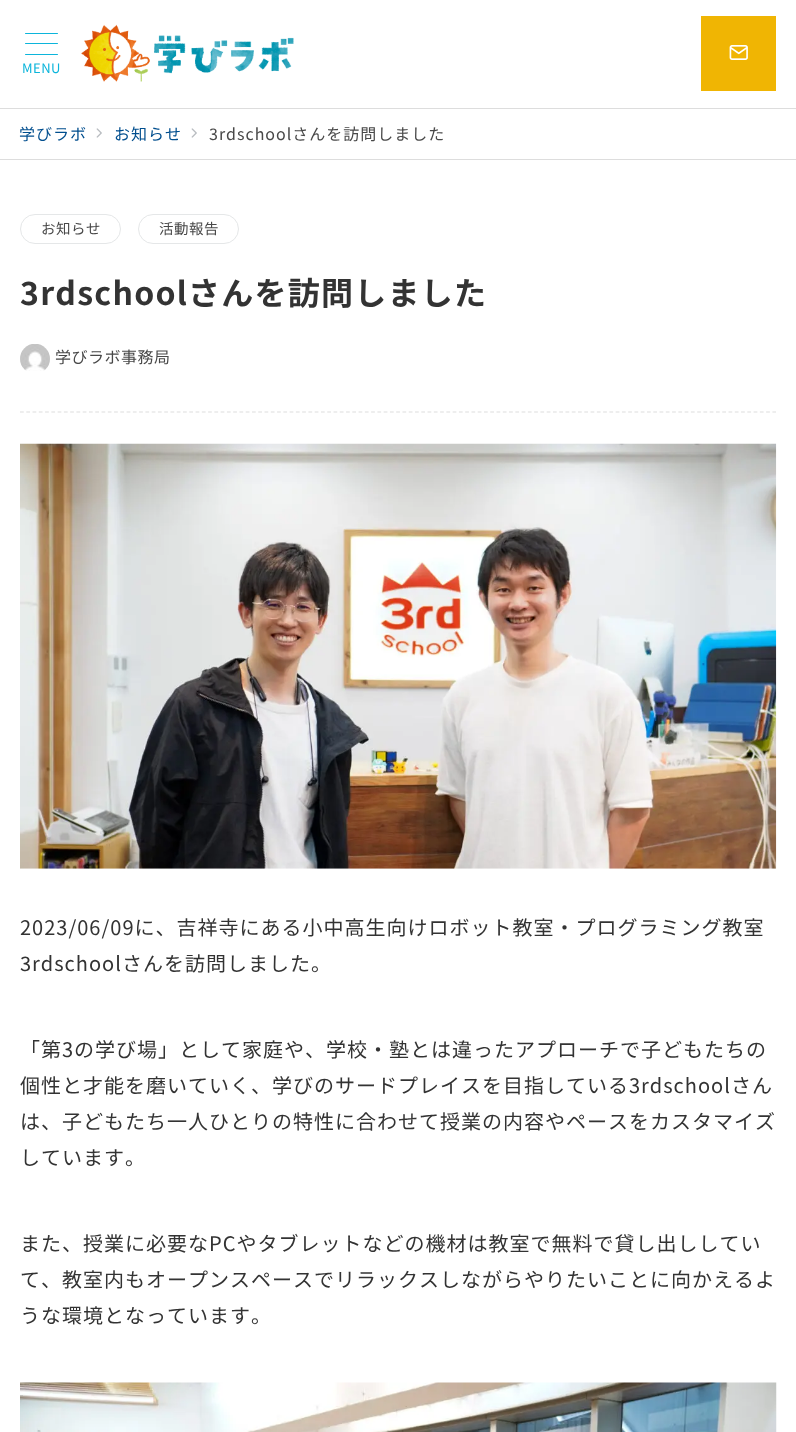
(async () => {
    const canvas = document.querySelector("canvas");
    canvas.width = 796;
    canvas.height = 1432;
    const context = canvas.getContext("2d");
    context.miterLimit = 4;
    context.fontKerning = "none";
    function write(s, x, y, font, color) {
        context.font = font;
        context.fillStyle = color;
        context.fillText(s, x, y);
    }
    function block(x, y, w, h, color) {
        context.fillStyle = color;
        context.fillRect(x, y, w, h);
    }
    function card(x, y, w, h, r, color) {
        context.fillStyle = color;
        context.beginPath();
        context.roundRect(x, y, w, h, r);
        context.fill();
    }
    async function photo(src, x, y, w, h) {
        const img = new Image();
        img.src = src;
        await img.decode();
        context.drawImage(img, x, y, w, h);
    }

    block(0, 0, 796, 1432, "rgb(255, 255, 255)");
    card(25, 33, 33, 1, 0.5, "rgb(12, 181, 219)");
    card(25, 43, 33, 1, 0.5, "rgb(12, 181, 219)");
    card(25, 54, 33, 1, 0.5, "rgb(12, 181, 219)");
    context.letterSpacing = "0.5px";
    write("MENU", 22, 73, "13px Noto Sans JP", "rgb(12, 181, 219)");
    await photo("media/1.png", 81, 24, 213, 58);
    block(701, 16, 75, 75, "rgb(240, 181, 3)");
    await photo("media/2.png", 729, 45, 19, 15);
    block(0, 108, 796, 1, "rgb(221, 221, 221)");
    block(0, 159, 796, 1, "rgb(221, 221, 221)");
    context.letterSpacing = "1px";
    write("学びラボ", 19, 140, "16px Noto Sans JP", "rgb(0, 78, 142)");
    await photo("media/3.png", 96, 128, 6, 10);
    write("お知らせ", 114, 140, "16px Noto Sans JP", "rgb(0, 78, 142)");
    await photo("media/3.png", 191, 128, 6, 10);
    write("3rdschoolさんを訪問しました", 209, 140, "16px Noto Sans JP", "rgb(72, 72, 72)");
    context.beginPath();
    context.roundRect(20.5, 214.5, 100, 29, 14.5);
    context.strokeStyle = "rgb(229, 231, 232)";
    context.stroke();
    context.letterSpacing = "0.5px";
    write("お知らせ", 41, 234, "14.5px Noto Sans JP", "rgb(72, 72, 72)");
    context.beginPath();
    context.roundRect(138.5, 214.5, 100, 29, 14.5);
    context.stroke();
    write("活動報告", 159, 234, "14.5px Noto Sans JP", "rgb(72, 72, 72)");
    context.letterSpacing = "1.25px";
    write("3rdschoolさんを訪問しました", 20, 305, "bold 32px Noto Sans JP", "rgb(51, 51, 51)");
    await photo("media/4.png", 20, 344, 30, 27);
    context.letterSpacing = "0.5px";
    write("学びラボ事務局", 55, 363, "16px Noto Sans JP", "rgb(72, 72, 72)");
    context.beginPath();
    context.moveTo(20, 412);
    context.lineTo(776, 412);
    context.strokeStyle = "rgb(221, 221, 221)";
    context.lineWidth = 1.2;
    context.setLineDash([3.75, 2.52]);
    context.stroke();
    await photo("media/5.png", 20, 443, 757, 426);
    context.letterSpacing = "1px";
    write("2023/06/09に、吉祥寺にある小中高生向けロボット教室・プログラミング教室", 20, 935, "20px Noto Sans JP", "rgb(51, 51, 51)");
    write("3rdschoolさんを訪問しました。", 20, 971, "20px Noto Sans JP", "rgb(51, 51, 51)");
    write("「第3の学び場」として家庭や、学校・塾とは違ったアプローチで子どもたちの", 20, 1057, "20px Noto Sans JP", "rgb(51, 51, 51)");
    write("個性と才能を磨いていく、学びのサードプレイスを目指している3rdschoolさん", 20, 1093, "20px Noto Sans JP", "rgb(51, 51, 51)");
    write("は、子どもたち一人ひとりの特性に合わせて授業の内容やペースをカスタマイズ", 20, 1129, "20px Noto Sans JP", "rgb(51, 51, 51)");
    write("しています。", 20, 1165, "20px Noto Sans JP", "rgb(51, 51, 51)");
    write("また、授業に必要なPCやタブレットなどの機材は教室で無料で貸し出ししてい", 20, 1251, "20px Noto Sans JP", "rgb(51, 51, 51)");
    write("て、教室内もオープンスペー", 20, 1287, "20px Noto Sans JP", "rgb(51, 51, 51)");
    write("スでリラックスしながらやりたいことに向かえるよ", 293, 1287, "20px Noto Sans JP", "rgb(51, 51, 51)");
    write("うな環境となっています。", 20, 1323, "20px Noto Sans JP", "rgb(51, 51, 51)");
    await photo("media/6.png", 20, 1382, 757, 50);
})();
